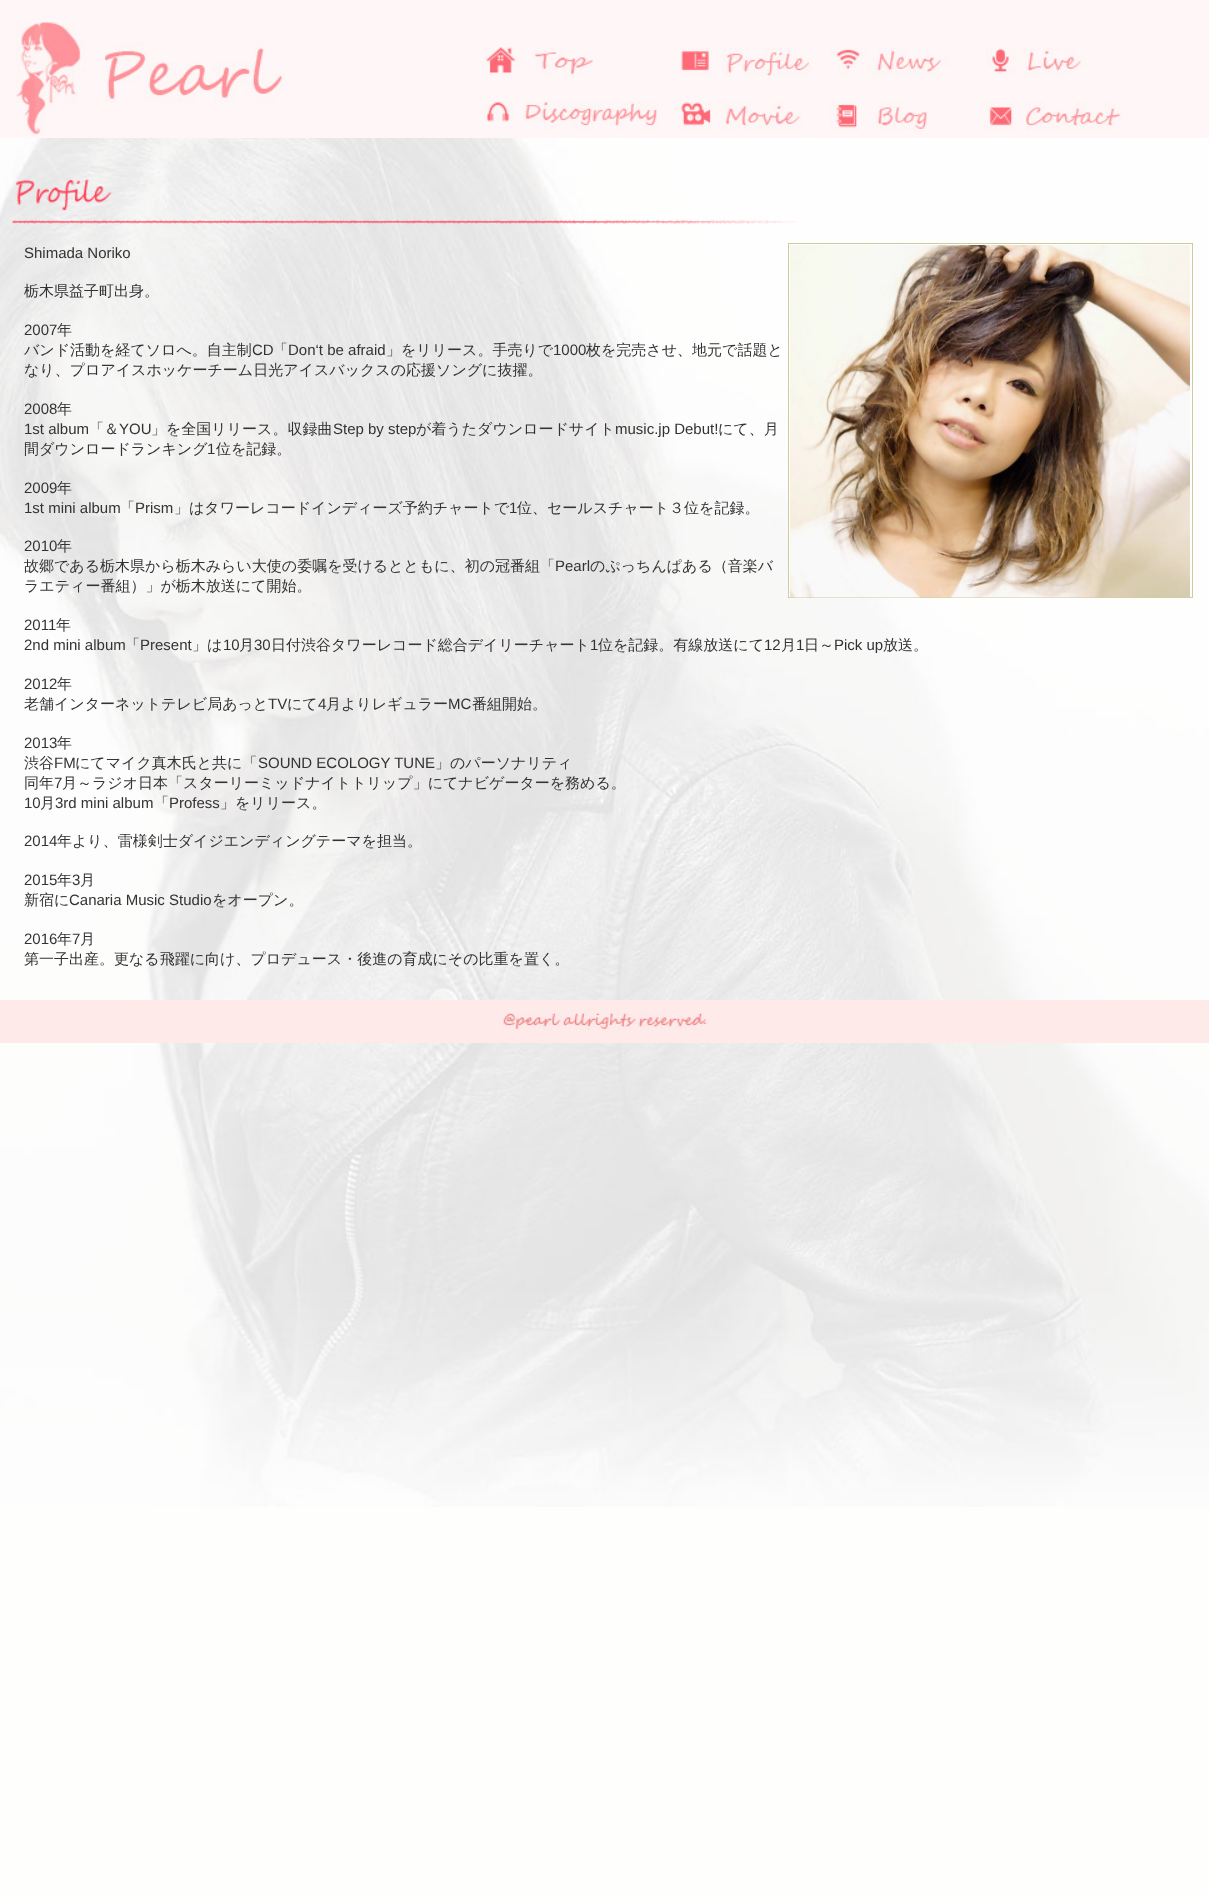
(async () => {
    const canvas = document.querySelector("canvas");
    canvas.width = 1209;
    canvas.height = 1895;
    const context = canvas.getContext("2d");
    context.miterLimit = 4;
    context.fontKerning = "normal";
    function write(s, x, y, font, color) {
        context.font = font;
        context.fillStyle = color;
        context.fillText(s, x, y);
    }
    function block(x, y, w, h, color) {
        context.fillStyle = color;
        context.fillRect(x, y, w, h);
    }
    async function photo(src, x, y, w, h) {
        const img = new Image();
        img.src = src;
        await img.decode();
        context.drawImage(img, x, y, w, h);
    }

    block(0, 0, 1209, 1895, "rgb(254, 254, 253)");
    await photo("media/1.png", 0, 138, 1209, 1369);
    block(0, 0, 1209, 138, "rgb(255, 246, 247)");
    await photo("media/2.png", 15, 22, 270, 114);
    await photo("media/3.png", 484, 47, 110, 30);
    await photo("media/4.png", 679, 48, 133, 29);
    await photo("media/5.png", 829, 47, 120, 30);
    await photo("media/6.png", 985, 48, 100, 29);
    await photo("media/7.png", 484, 101, 175, 30);
    await photo("media/8.png", 676, 101, 127, 30);
    await photo("media/9.png", 829, 101, 100, 30);
    await photo("media/10.png", 985, 101, 140, 30);
    await photo("media/11.png", 12, 178, 785, 46);
    write("Shimada Noriko", 24, 258, "15px Liberation Sans", "rgb(51, 51, 51)");
    block(789, 378, 206, 219, "rgb(255, 255, 255)");
    context.strokeStyle = "rgb(205, 205, 154)";
    context.strokeRect(788.5, 243.5, 404, 354);
    await photo("media/12.png", 790, 245, 400, 353);
    write("栃木県益子町出身。", 24, 296, "500 15px WenQuanYi Zen Hei", "rgb(51, 51, 51)");
    write("2007", 24, 335, "15px Liberation Sans", "rgb(51, 51, 51)");
    write("年", 57, 335, "500 15px WenQuanYi Zen Hei", "rgb(51, 51, 51)");
    write("バンド活動を経てソロへ。自主制", 24, 355, "500 15px WenQuanYi Zen Hei", "rgb(51, 51, 51)");
    write("CD", 252, 355, "15px Liberation Sans", "rgb(51, 51, 51)");
    write("「", 273, 355, "500 15px WenQuanYi Zen Hei", "rgb(51, 51, 51)");
    write("Don‘t be afraid", 288, 355, "15px Liberation Sans", "rgb(51, 51, 51)");
    write("」をリリース。手売りで", 386, 355, "500 15px WenQuanYi Zen Hei", "rgb(51, 51, 51)");
    write("1000", 553, 355, "15px Liberation Sans", "rgb(51, 51, 51)");
    write("枚を完売させ、地元で話題と", 586, 355, "500 15px WenQuanYi Zen Hei", "rgb(51, 51, 51)");
    write("なり、プロアイスホッケーチーム日光アイスバックスの応援ソングに抜擢。", 24, 375, "500 15px WenQuanYi Zen Hei", "rgb(51, 51, 51)");
    write("2008", 24, 414, "15px Liberation Sans", "rgb(51, 51, 51)");
    write("年", 57, 414, "500 15px WenQuanYi Zen Hei", "rgb(51, 51, 51)");
    write("1st album", 24, 434, "15px Liberation Sans", "rgb(51, 51, 51)");
    write("「＆", 89, 434, "500 15px WenQuanYi Zen Hei", "rgb(51, 51, 51)");
    write("YOU", 119, 434, "15px Liberation Sans", "rgb(51, 51, 51)");
    write("」を全国リリース。収録曲", 151, 434, "500 15px WenQuanYi Zen Hei", "rgb(51, 51, 51)");
    write("Step by step", 333, 434, "15px Liberation Sans", "rgb(51, 51, 51)");
    write("が着うたダウンロードサイト", 416, 434, "500 15px WenQuanYi Zen Hei", "rgb(51, 51, 51)");
    write("music.jp Debut!", 615, 434, "15px Liberation Sans", "rgb(51, 51, 51)");
    write("にて、月", 718, 434, "500 15px WenQuanYi Zen Hei", "rgb(51, 51, 51)");
    write("間ダウンロードランキング", 24, 454, "500 15px WenQuanYi Zen Hei", "rgb(51, 51, 51)");
    write("1", 207, 454, "15px Liberation Sans", "rgb(51, 51, 51)");
    write("位を記録。", 216, 454, "500 15px WenQuanYi Zen Hei", "rgb(51, 51, 51)");
    write("2009", 24, 493, "15px Liberation Sans", "rgb(51, 51, 51)");
    write("年", 57, 493, "500 15px WenQuanYi Zen Hei", "rgb(51, 51, 51)");
    write("1st mini album", 24, 513, "15px Liberation Sans", "rgb(51, 51, 51)");
    write("「", 120, 513, "500 15px WenQuanYi Zen Hei", "rgb(51, 51, 51)");
    write("Prism", 135, 513, "15px Liberation Sans", "rgb(51, 51, 51)");
    write("」はタワーレコードインディーズ予約チャートで", 174, 513, "500 15px WenQuanYi Zen Hei", "rgb(51, 51, 51)");
    write("1", 509, 513, "15px Liberation Sans", "rgb(51, 51, 51)");
    write("位、セールスチャート３位を記録。", 517, 513, "500 15px WenQuanYi Zen Hei", "rgb(51, 51, 51)");
    write("2010", 24, 551, "15px Liberation Sans", "rgb(51, 51, 51)");
    write("年", 57, 551, "500 15px WenQuanYi Zen Hei", "rgb(51, 51, 51)");
    write("故郷である栃木県から栃木みらい大使の委嘱を受けるとともに、初の冠番組「", 24, 571, "500 15px WenQuanYi Zen Hei", "rgb(51, 51, 51)");
    write("Pearl", 555, 571, "15px Liberation Sans", "rgb(51, 51, 51)");
    write("のぷっちんぱある（音楽バ", 590, 571, "500 15px WenQuanYi Zen Hei", "rgb(51, 51, 51)");
    write("ラエティー番組）」が栃木放送にて開始。", 24, 591, "500 15px WenQuanYi Zen Hei", "rgb(51, 51, 51)");
    write("2011", 24, 630, "15px Liberation Sans", "rgb(51, 51, 51)");
    write("年", 56, 630, "500 15px WenQuanYi Zen Hei", "rgb(51, 51, 51)");
    write("2nd mini album", 24, 650, "15px Liberation Sans", "rgb(51, 51, 51)");
    write("「", 125, 650, "500 15px WenQuanYi Zen Hei", "rgb(51, 51, 51)");
    write("Present", 140, 650, "15px Liberation Sans", "rgb(51, 51, 51)");
    write("」は", 192, 650, "500 15px WenQuanYi Zen Hei", "rgb(51, 51, 51)");
    write("10", 223, 650, "15px Liberation Sans", "rgb(51, 51, 51)");
    write("月", 239, 650, "500 15px WenQuanYi Zen Hei", "rgb(51, 51, 51)");
    write("30", 254, 650, "15px Liberation Sans", "rgb(51, 51, 51)");
    write("日付渋谷タワーレコード総合デイリーチャート", 271, 650, "500 15px WenQuanYi Zen Hei", "rgb(51, 51, 51)");
    write("1", 590, 650, "15px Liberation Sans", "rgb(51, 51, 51)");
    write("位を記録。有線放送にて", 598, 650, "500 15px WenQuanYi Zen Hei", "rgb(51, 51, 51)");
    write("12", 764, 650, "15px Liberation Sans", "rgb(51, 51, 51)");
    write("月", 781, 650, "500 15px WenQuanYi Zen Hei", "rgb(51, 51, 51)");
    write("1", 796, 650, "15px Liberation Sans", "rgb(51, 51, 51)");
    write("日～", 804, 650, "500 15px WenQuanYi Zen Hei", "rgb(51, 51, 51)");
    write("Pick up", 834, 650, "15px Liberation Sans", "rgb(51, 51, 51)");
    write("放送。", 883, 650, "500 15px WenQuanYi Zen Hei", "rgb(51, 51, 51)");
    write("2012", 24, 689, "15px Liberation Sans", "rgb(51, 51, 51)");
    write("年", 57, 689, "500 15px WenQuanYi Zen Hei", "rgb(51, 51, 51)");
    write("老舗インターネットテレビ局あっと", 24, 709, "500 15px WenQuanYi Zen Hei", "rgb(51, 51, 51)");
    write("TV", 268, 709, "15px Liberation Sans", "rgb(51, 51, 51)");
    write("にて", 287, 709, "500 15px WenQuanYi Zen Hei", "rgb(51, 51, 51)");
    write("4", 318, 709, "15px Liberation Sans", "rgb(51, 51, 51)");
    write("月よりレギュラー", 326, 709, "500 15px WenQuanYi Zen Hei", "rgb(51, 51, 51)");
    write("MC", 448, 709, "15px Liberation Sans", "rgb(51, 51, 51)");
    write("番組開始。", 472, 709, "500 15px WenQuanYi Zen Hei", "rgb(51, 51, 51)");
    write("2013", 24, 748, "15px Liberation Sans", "rgb(51, 51, 51)");
    write("年", 57, 748, "500 15px WenQuanYi Zen Hei", "rgb(51, 51, 51)");
    write("渋谷", 24, 768, "500 15px WenQuanYi Zen Hei", "rgb(51, 51, 51)");
    write("FM", 54, 768, "15px Liberation Sans", "rgb(51, 51, 51)");
    write("にてマイク真木氏と共に「", 75, 768, "500 15px WenQuanYi Zen Hei", "rgb(51, 51, 51)");
    write("SOUND ECOLOGY TUNE", 258, 768, "15px Liberation Sans", "rgb(51, 51, 51)");
    write("」のパーソナリティ", 435, 768, "500 15px WenQuanYi Zen Hei", "rgb(51, 51, 51)");
    write("同年", 24, 788, "500 15px WenQuanYi Zen Hei", "rgb(51, 51, 51)");
    write("7", 54, 788, "15px Liberation Sans", "rgb(51, 51, 51)");
    write("月～ラジオ日本「スターリーミッドナイトトリップ」にてナビゲーターを務める。", 62, 788, "500 15px WenQuanYi Zen Hei", "rgb(51, 51, 51)");
    write("10", 24, 808, "15px Liberation Sans", "rgb(51, 51, 51)");
    write("月", 40, 808, "500 15px WenQuanYi Zen Hei", "rgb(51, 51, 51)");
    write("3rd mini album", 55, 808, "15px Liberation Sans", "rgb(51, 51, 51)");
    write("「", 154, 808, "500 15px WenQuanYi Zen Hei", "rgb(51, 51, 51)");
    write("Profess", 169, 808, "15px Liberation Sans", "rgb(51, 51, 51)");
    write("」をリリース。", 220, 808, "500 15px WenQuanYi Zen Hei", "rgb(51, 51, 51)");
    write("2014", 24, 846, "15px Liberation Sans", "rgb(51, 51, 51)");
    write("年より、雷様剣士ダイジエンディングテーマを担当。", 57, 846, "500 15px WenQuanYi Zen Hei", "rgb(51, 51, 51)");
    write("2015", 24, 885, "15px Liberation Sans", "rgb(51, 51, 51)");
    write("年", 57, 885, "500 15px WenQuanYi Zen Hei", "rgb(51, 51, 51)");
    write("3", 72, 885, "15px Liberation Sans", "rgb(51, 51, 51)");
    write("月", 80, 885, "500 15px WenQuanYi Zen Hei", "rgb(51, 51, 51)");
    write("新宿に", 24, 905, "500 15px WenQuanYi Zen Hei", "rgb(51, 51, 51)");
    write("Canaria Music Studio", 69, 905, "15px Liberation Sans", "rgb(51, 51, 51)");
    write("をオープン。", 212, 905, "500 15px WenQuanYi Zen Hei", "rgb(51, 51, 51)");
    write("2016", 24, 944, "15px Liberation Sans", "rgb(51, 51, 51)");
    write("年", 57, 944, "500 15px WenQuanYi Zen Hei", "rgb(51, 51, 51)");
    write("7", 72, 944, "15px Liberation Sans", "rgb(51, 51, 51)");
    write("月", 80, 944, "500 15px WenQuanYi Zen Hei", "rgb(51, 51, 51)");
    write("第一子出産。更なる飛躍に向け、プロデュース・後進の育成にその比重を置く。", 24, 964, "500 15px WenQuanYi Zen Hei", "rgb(51, 51, 51)");
    block(0, 1000, 1209, 43, "rgb(255, 234, 234)");
    await photo("media/13.png", 499, 1012, 210, 18);
})();
